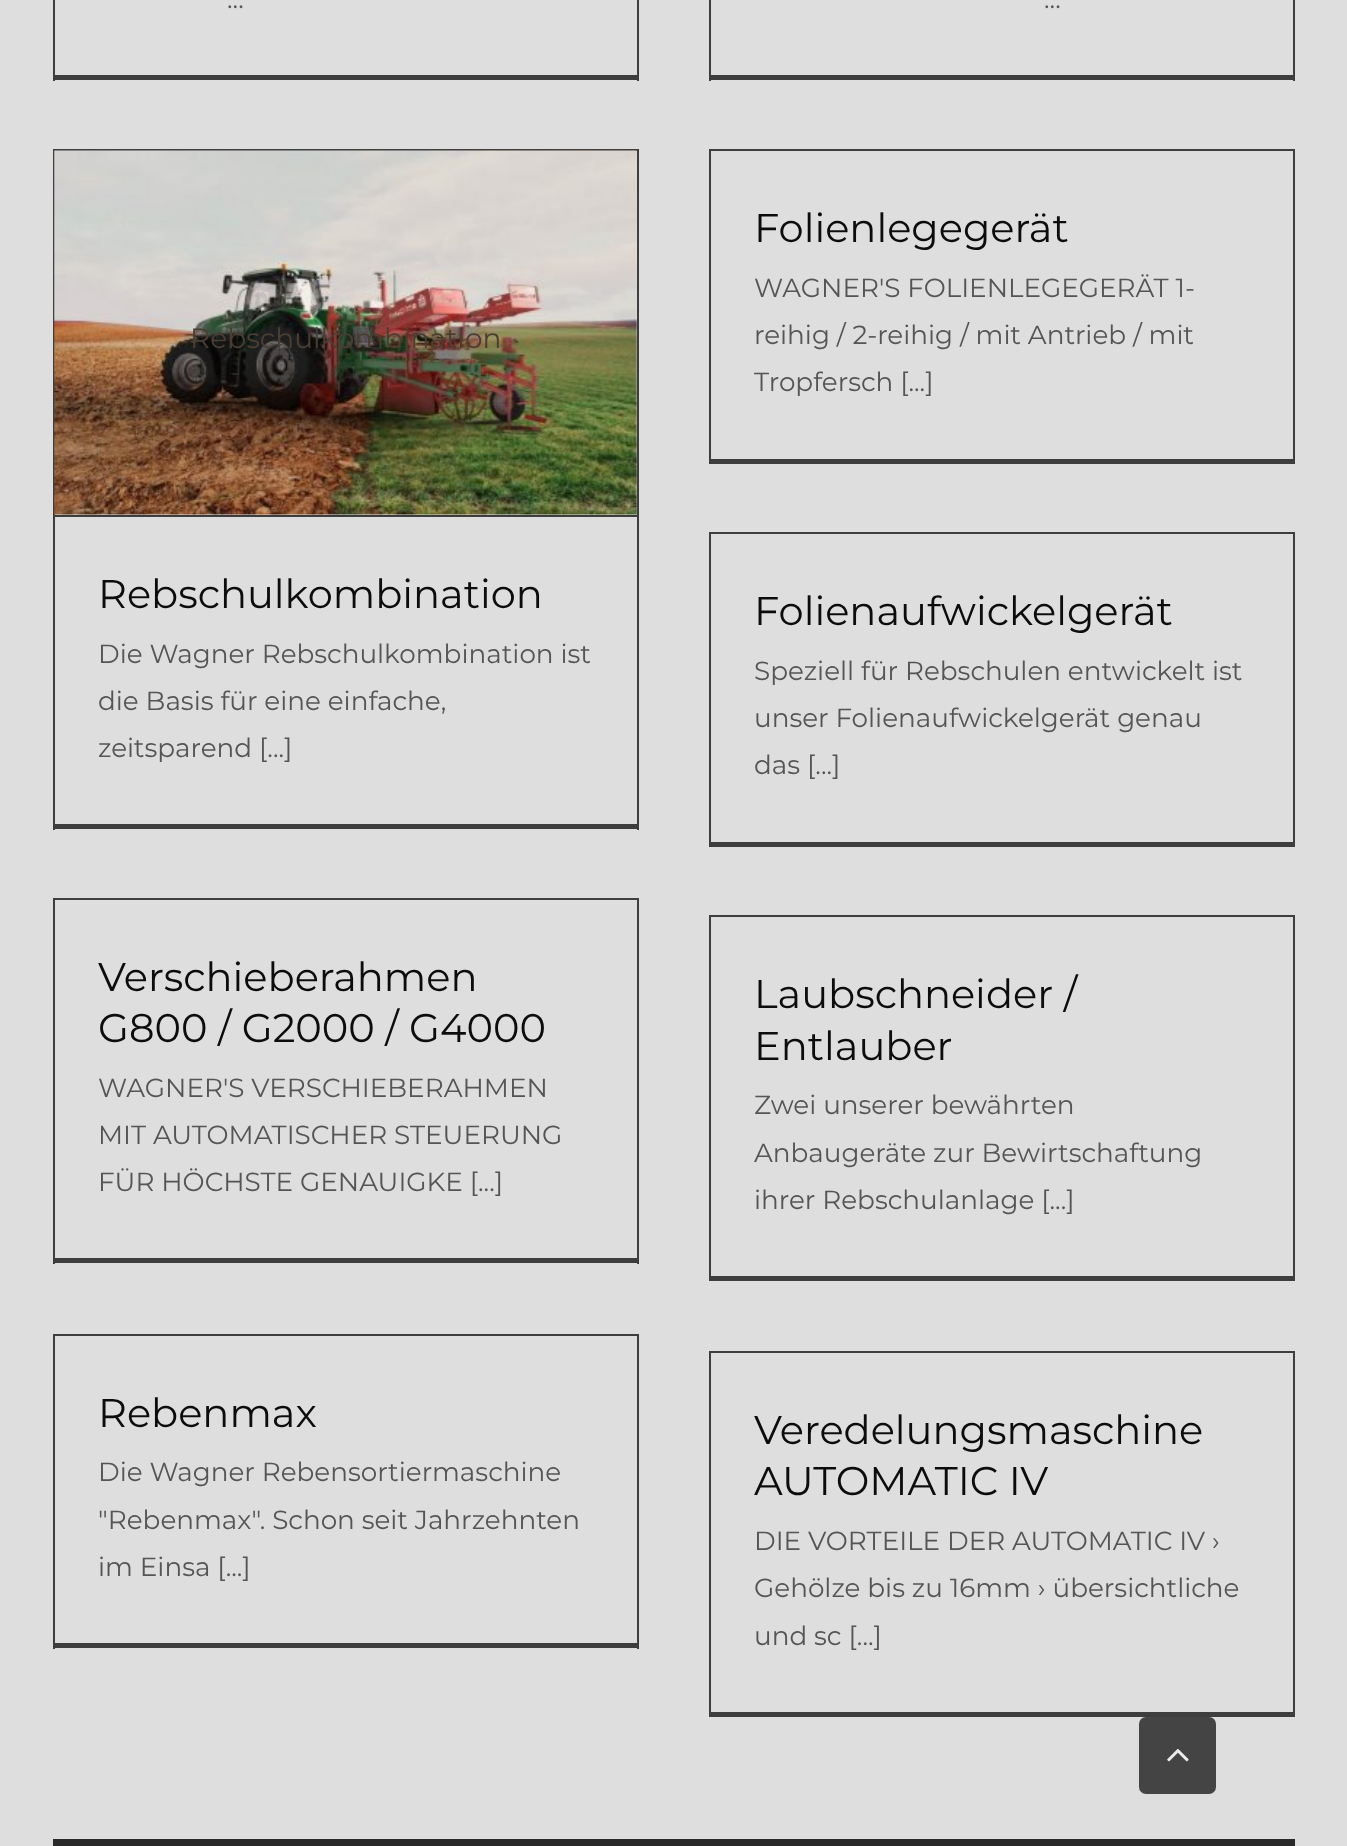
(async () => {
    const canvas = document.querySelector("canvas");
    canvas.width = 1347;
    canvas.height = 1846;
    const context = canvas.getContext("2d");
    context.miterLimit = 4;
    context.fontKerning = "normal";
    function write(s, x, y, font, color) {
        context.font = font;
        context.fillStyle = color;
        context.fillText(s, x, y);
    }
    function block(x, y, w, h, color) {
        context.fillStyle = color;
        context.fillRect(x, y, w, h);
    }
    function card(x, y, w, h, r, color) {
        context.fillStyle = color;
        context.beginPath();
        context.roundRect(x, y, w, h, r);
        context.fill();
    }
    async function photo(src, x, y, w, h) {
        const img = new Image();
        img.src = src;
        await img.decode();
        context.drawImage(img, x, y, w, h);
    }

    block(0, 0, 1347, 1846, "rgb(222, 222, 222)");
    block(637, 0, 2, 81, "rgb(62, 62, 62)");
    block(53, 75, 586, 5, "rgb(62, 62, 62)");
    block(53, 0, 2, 81, "rgb(62, 62, 62)");
    write("...", 227, 8, "26.25px Montserrat", "rgb(86, 84, 84)");
    block(1293, 0, 2, 81, "rgb(62, 62, 62)");
    block(709, 75, 586, 5, "rgb(62, 62, 62)");
    block(709, 0, 2, 81, "rgb(62, 62, 62)");
    write("...", 1044, 8, "26.25px Montserrat", "rgb(86, 84, 84)");
    block(709, 149, 586, 2, "rgb(62, 62, 62)");
    block(1293, 149, 2, 315, "rgb(62, 62, 62)");
    block(709, 459, 586, 5, "rgb(62, 62, 62)");
    block(709, 149, 2, 315, "rgb(62, 62, 62)");
    write("Folienlegegerät", 754, 242, "40px Montserrat", "rgb(12, 12, 12)");
    write("WAGNER'S FOLIENLEGEGERÄT 1-", 754, 297, "26.25px Montserrat", "rgb(86, 84, 84)");
    write("reihig / 2-reihig / mit Antrieb / mit", 754, 344, "26.25px Montserrat", "rgb(86, 84, 84)");
    write("Tropfersch [...]", 754, 391, "26.25px Montserrat", "rgb(86, 84, 84)");
    block(53, 149, 586, 2, "rgb(62, 62, 62)");
    block(637, 149, 2, 681, "rgb(62, 62, 62)");
    block(53, 824, 586, 5, "rgb(62, 62, 62)");
    block(53, 149, 2, 681, "rgb(62, 62, 62)");
    block(54, 515, 583, 2, "rgb(62, 62, 62)");
    await photo("media/1.png", 54, 150, 583, 365);
    write("Rebschulkombination", 190, 348, "28px Montserrat", "rgb(74, 62, 51)");
    write("Rebschulkombination", 98, 608, "40px Montserrat", "rgb(12, 12, 12)");
    write("Die Wagner Rebschulkombination ist", 98, 663, "26.25px Montserrat", "rgb(86, 84, 84)");
    write("die Basis für eine einfache,", 98, 710, "26.25px Montserrat", "rgb(86, 84, 84)");
    write("zeitsparend [...]", 98, 757, "26.25px Montserrat", "rgb(86, 84, 84)");
    block(709, 532, 586, 2, "rgb(62, 62, 62)");
    block(1293, 532, 2, 315, "rgb(62, 62, 62)");
    block(709, 842, 586, 5, "rgb(62, 62, 62)");
    block(709, 532, 2, 315, "rgb(62, 62, 62)");
    write("Folienaufwickelgerät", 754, 625, "40px Montserrat", "rgb(12, 12, 12)");
    write("Speziell für Rebschulen entwickelt ist", 754, 680, "26.25px Montserrat", "rgb(86, 84, 84)");
    write("unser Folienaufwickelgerät genau", 754, 727, "26.25px Montserrat", "rgb(86, 84, 84)");
    write("das [...]", 754, 774, "26.25px Montserrat", "rgb(86, 84, 84)");
    block(53, 898, 586, 2, "rgb(62, 62, 62)");
    block(637, 898, 2, 366, "rgb(62, 62, 62)");
    block(53, 1258, 586, 5, "rgb(62, 62, 62)");
    block(53, 898, 2, 366, "rgb(62, 62, 62)");
    write("Verschieberahmen", 98, 991, "40px Montserrat", "rgb(12, 12, 12)");
    write("G800 / G2000 / G4000", 98, 1042, "40px Montserrat", "rgb(12, 12, 12)");
    write("WAGNER'S VERSCHIEBERAHMEN", 98, 1097, "26.25px Montserrat", "rgb(86, 84, 84)");
    write("MIT AUTOMATISCHER STEUERUNG", 98, 1144, "26.25px Montserrat", "rgb(86, 84, 84)");
    write("FÜR HÖCHSTE GENAUIGKE [...]", 98, 1191, "26.25px Montserrat", "rgb(86, 84, 84)");
    block(709, 915, 586, 2, "rgb(62, 62, 62)");
    block(1293, 915, 2, 366, "rgb(62, 62, 62)");
    block(709, 1276, 586, 5, "rgb(62, 62, 62)");
    block(709, 915, 2, 366, "rgb(62, 62, 62)");
    write("Laubschneider /", 754, 1008, "40px Montserrat", "rgb(12, 12, 12)");
    write("Entlauber", 754, 1060, "40px Montserrat", "rgb(12, 12, 12)");
    write("Zwei unserer bewährten", 754, 1114, "26.25px Montserrat", "rgb(86, 84, 84)");
    write("Anbaugeräte zur Bewirtschaftung", 754, 1162, "26.25px Montserrat", "rgb(86, 84, 84)");
    write("ihrer Rebschulanlage [...]", 754, 1209, "26.25px Montserrat", "rgb(86, 84, 84)");
    block(53, 1334, 586, 2, "rgb(62, 62, 62)");
    block(637, 1334, 2, 315, "rgb(62, 62, 62)");
    block(53, 1643, 586, 5, "rgb(62, 62, 62)");
    block(53, 1334, 2, 315, "rgb(62, 62, 62)");
    write("Rebenmax", 98, 1427, "40px Montserrat", "rgb(12, 12, 12)");
    write("Die Wagner Rebensortiermaschine", 98, 1481, "26.25px Montserrat", "rgb(86, 84, 84)");
    write("\"Rebenmax\". Schon seit Jahrzehnten", 98, 1529, "26.25px Montserrat", "rgb(86, 84, 84)");
    write("im Einsa [...]", 98, 1576, "26.25px Montserrat", "rgb(86, 84, 84)");
    block(709, 1351, 586, 2, "rgb(62, 62, 62)");
    block(1293, 1351, 2, 366, "rgb(62, 62, 62)");
    block(709, 1712, 586, 5, "rgb(62, 62, 62)");
    block(709, 1351, 2, 366, "rgb(62, 62, 62)");
    write("Veredelungsmaschine", 754, 1444, "40px Montserrat", "rgb(12, 12, 12)");
    write("AUTOMATIC IV", 754, 1495, "40px Montserrat", "rgb(12, 12, 12)");
    write("DIE VORTEILE DER AUTOMATIC IV ›", 754, 1550, "26.25px Montserrat", "rgb(86, 84, 84)");
    write("Gehölze bis zu 16mm › übersichtliche", 754, 1597, "26.25px Montserrat", "rgb(86, 84, 84)");
    write("und sc [...]", 754, 1645, "26.25px Montserrat", "rgb(86, 84, 84)");
    block(53, 1839, 1242, 7, "rgb(41, 41, 42)");
    card(1139, 1717, 77, 77, 7, "rgb(68, 68, 68)");
    await photo("media/2.png", 1167, 1749, 22, 13);
})();
